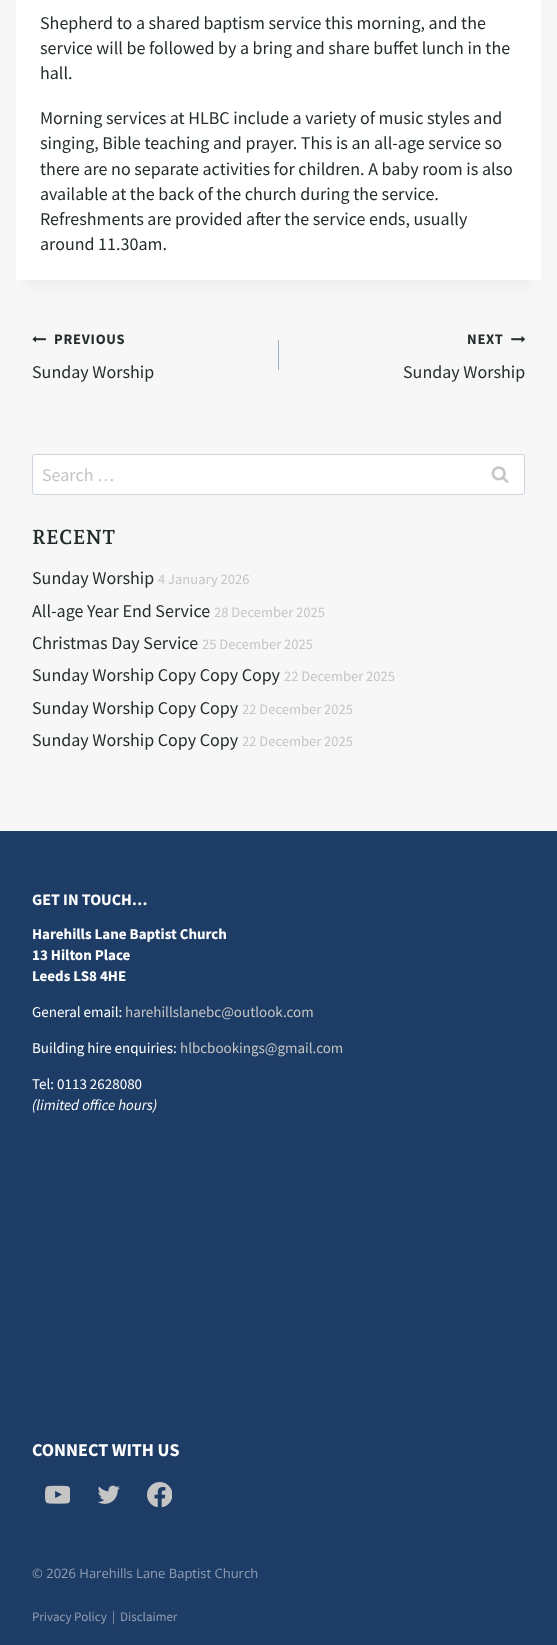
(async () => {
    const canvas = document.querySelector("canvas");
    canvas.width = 557;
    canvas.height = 1645;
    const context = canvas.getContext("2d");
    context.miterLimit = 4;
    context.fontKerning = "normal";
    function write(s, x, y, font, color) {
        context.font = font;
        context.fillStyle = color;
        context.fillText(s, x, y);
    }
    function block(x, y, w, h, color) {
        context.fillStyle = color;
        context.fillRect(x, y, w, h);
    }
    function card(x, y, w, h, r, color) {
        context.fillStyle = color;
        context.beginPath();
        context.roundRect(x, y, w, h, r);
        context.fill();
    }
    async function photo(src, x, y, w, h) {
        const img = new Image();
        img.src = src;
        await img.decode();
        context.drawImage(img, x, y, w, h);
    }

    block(0, 0, 557, 1645, "rgb(247, 247, 247)");
    context.fillStyle = "rgba(0, 0, 0, 0.05)";
    context.filter = "blur(7.5px)";
    context.beginPath();
    context.rect(26, -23, 505, 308);
    context.fill();
    context.filter = "none";
    card(16, -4, 525, 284, 4, "rgb(255, 255, 255)");
    write("Shepherd to a shared baptism service this morning, and the", 40, 29, "18px Source Sans Pro", "rgb(36, 45, 45)");
    write("service will be followed by a bring and share buffet lunch in the", 40, 54, "18px Source Sans Pro", "rgb(36, 45, 45)");
    write("hall.", 40, 79, "18px Source Sans Pro", "rgb(36, 45, 45)");
    write("Morning services at HLBC include a variety of music styles and", 40, 124, "18px Source Sans Pro", "rgb(36, 45, 45)");
    write("singing, Bible teaching and prayer. This is an all-age service so", 40, 149, "18px Source Sans Pro", "rgb(36, 45, 45)");
    write("there are no separate activities for children. A baby room is also", 40, 175, "18px Source Sans Pro", "rgb(36, 45, 45)");
    write("available at the back of the church during the service.", 40, 200, "18px Source Sans Pro", "rgb(36, 45, 45)");
    write("Refreshments are provided after the service ends, usually", 40, 225, "18px Source Sans Pro", "rgb(36, 45, 45)");
    write("around 11.30am.", 40, 250, "18px Source Sans Pro", "rgb(36, 45, 45)");
    await photo("media/1.png", 32, 336, 14, 7);
    context.letterSpacing = "0.75px";
    write("PREVIOUS", 54, 344, "bold 14.5px Source Sans Pro", "rgb(36, 45, 45)");
    context.letterSpacing = "0px";
    write("Sunday Worship", 32, 378, "18px Source Sans Pro", "rgb(36, 45, 45)");
    block(278, 340, 1, 30, "rgb(160, 174, 192)");
    context.letterSpacing = "0.75px";
    write("NEXT", 467, 344, "bold 14.5px Source Sans Pro", "rgb(36, 45, 45)");
    await photo("media/2.png", 511, 336, 14, 7);
    context.letterSpacing = "0px";
    write("Sunday Worship", 403, 378, "18px Source Sans Pro", "rgb(36, 45, 45)");
    context.fillStyle = "rgb(255, 255, 255)";
    context.beginPath();
    context.roundRect(32.5, 454.5, 492, 40, 2.5);
    context.fill();
    context.strokeStyle = "rgb(203, 213, 224)";
    context.stroke();
    write("Search …", 42, 481, "18px Source Sans Pro", "rgb(197, 197, 197)");
    await photo("media/3.png", 491, 466, 18, 17);
    write("RECENT", 32, 544, "bold 20px Andada Pro", "rgb(36, 45, 45)");
    write("Sunday Worship", 32, 584, "18px Source Sans Pro", "rgb(36, 45, 45)");
    write("4 January 2026", 158, 584, "14.5px Source Sans Pro", "rgb(197, 197, 197)");
    write("All-age Year End Service", 32, 617, "18px Source Sans Pro", "rgb(36, 45, 45)");
    write("28 December 2025", 214, 617, "14.5px Source Sans Pro", "rgb(197, 197, 197)");
    write("Christmas Day Service", 32, 649, "18px Source Sans Pro", "rgb(36, 45, 45)");
    write("25 December 2025", 202, 649, "14.5px Source Sans Pro", "rgb(197, 197, 197)");
    write("Sunday Worship Copy Copy Copy", 32, 681, "18px Source Sans Pro", "rgb(36, 45, 45)");
    write("22 December 2025", 284, 681, "14.5px Source Sans Pro", "rgb(197, 197, 197)");
    write("Sunday Worship Copy Copy", 32, 714, "18px Source Sans Pro", "rgb(36, 45, 45)");
    write("22 December 2025", 242, 714, "14.5px Source Sans Pro", "rgb(197, 197, 197)");
    write("Sunday Worship Copy Copy", 32, 746, "18px Source Sans Pro", "rgb(36, 45, 45)");
    write("22 December 2025", 242, 746, "14.5px Source Sans Pro", "rgb(197, 197, 197)");
    block(0, 831, 557, 814, "rgb(30, 61, 102)");
    write("GET IN TOUCH…", 32, 905, "bold 16px Source Sans Pro", "rgb(255, 255, 255)");
    write("Harehills Lane Baptist Church", 32, 939, "bold 15px Source Sans Pro", "rgb(255, 255, 255)");
    write("13 Hilton Place", 32, 960, "bold 15px Source Sans Pro", "rgb(255, 255, 255)");
    write("Leeds LS8 4HE", 32, 981, "bold 15px Source Sans Pro", "rgb(255, 255, 255)");
    write("General email:", 32, 1017, "15px Source Sans Pro", "rgb(255, 255, 255)");
    write("harehillslanebc@outlook.com", 125, 1017, "15px Source Sans Pro", "rgb(197, 197, 197)");
    write("Building hire enquiries:", 32, 1053, "15px Source Sans Pro", "rgb(255, 255, 255)");
    write("hlbcbookings@gmail.com", 180, 1053, "15px Source Sans Pro", "rgb(197, 197, 197)");
    write("Tel: 0113 2628080", 32, 1089, "15px Source Sans Pro", "rgb(255, 255, 255)");
    write("(limited office hours)", 32, 1110, "italic 15px Source Sans Pro", "rgb(255, 255, 255)");
    write("CONNECT WITH US", 32, 1456, "bold 18px Source Sans Pro", "rgb(255, 255, 255)");
    await photo("media/4.png", 45, 1485, 25, 19);
    await photo("media/5.png", 97, 1485, 23, 19);
    await photo("media/6.png", 147, 1482, 25, 25);
    write("© 2026 Harehills Lane Baptist Church", 32, 1578, "13px Open Sans", "rgb(143, 158, 179)");
    write("Privacy Policy", 32, 1621, "13px Source Sans Pro", "rgb(143, 158, 179)");
    write("|", 112, 1621, "13px Source Sans Pro", "rgb(143, 158, 179)");
    write("Disclaimer", 120, 1621, "13px Source Sans Pro", "rgb(143, 158, 179)");
})();
